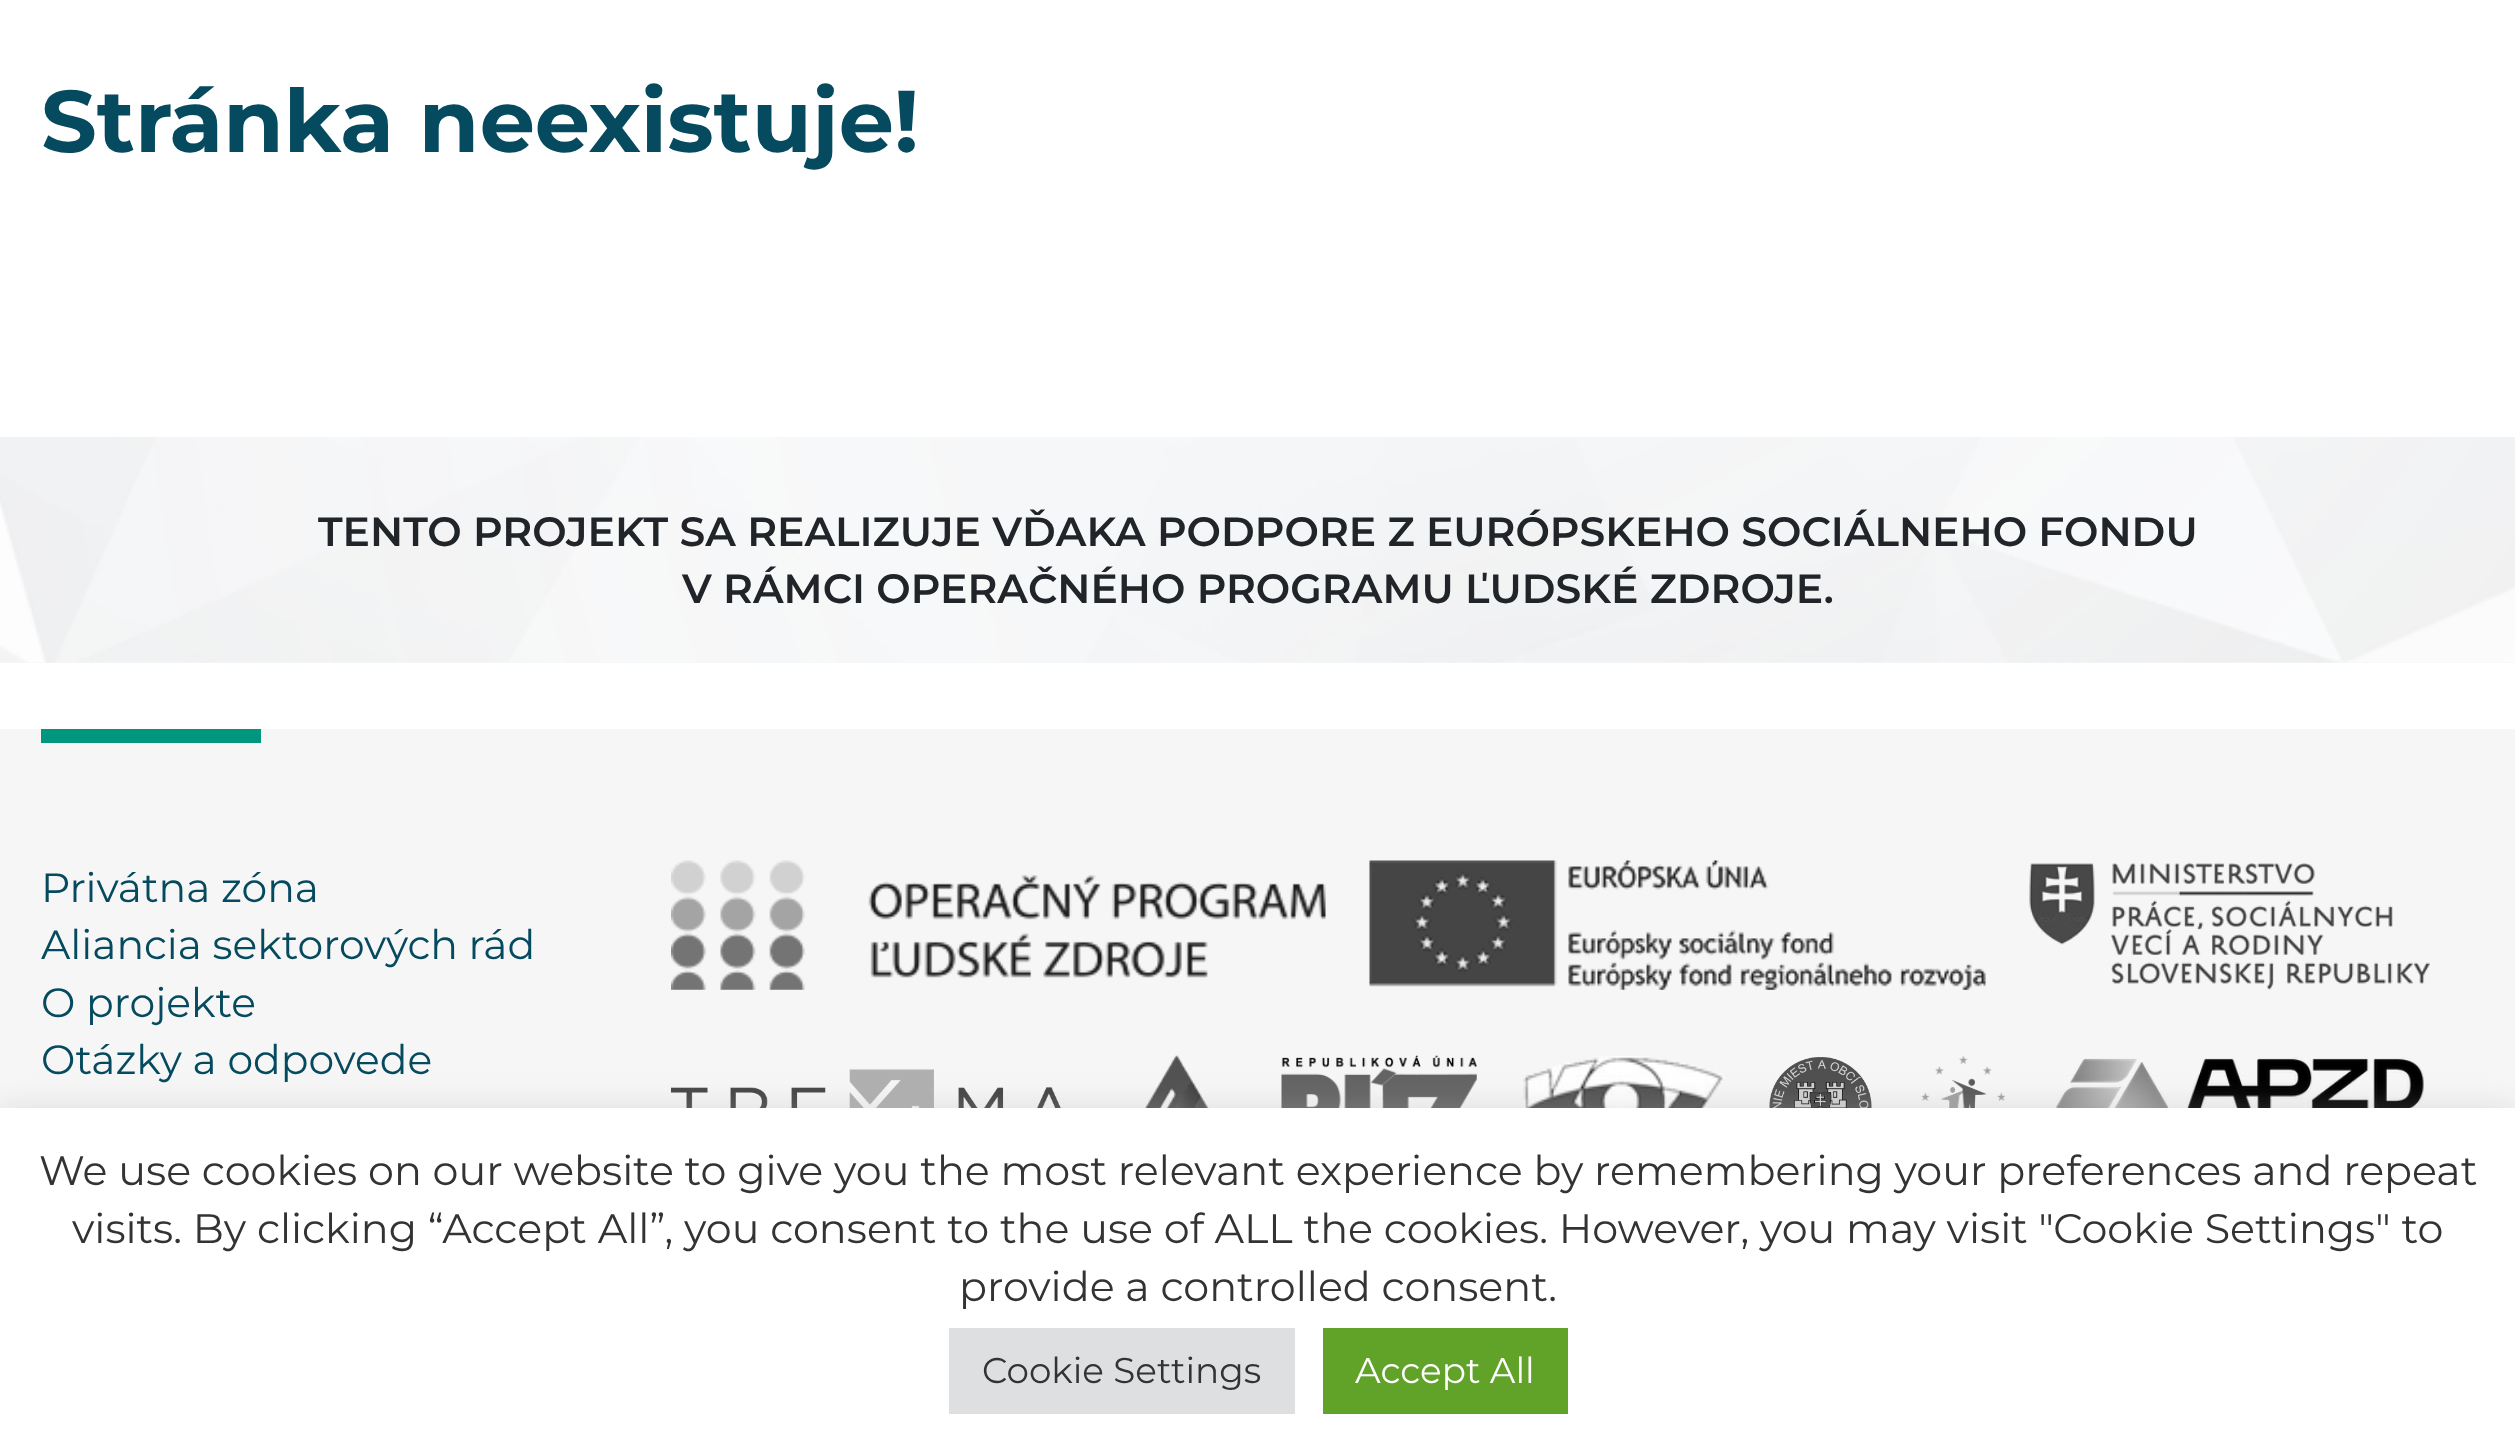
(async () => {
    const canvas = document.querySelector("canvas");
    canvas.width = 2515;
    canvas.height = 1446;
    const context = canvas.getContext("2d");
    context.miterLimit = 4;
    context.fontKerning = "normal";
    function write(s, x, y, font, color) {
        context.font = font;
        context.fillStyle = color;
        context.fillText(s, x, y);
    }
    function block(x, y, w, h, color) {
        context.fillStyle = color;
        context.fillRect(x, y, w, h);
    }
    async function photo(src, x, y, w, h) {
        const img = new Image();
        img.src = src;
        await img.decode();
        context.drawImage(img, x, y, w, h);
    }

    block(0, 0, 2515, 1446, "rgb(255, 255, 255)");
    write("Stránka neexistuje!", 41, 152, "bold 87.5px Montserrat", "rgb(5, 74, 94)");
    block(0, 437, 2515, 226, "rgb(246, 247, 248)");
    await photo("media/1.png", 0, 437, 2515, 226);
    write("TENTO PROJEKT SA REALIZUJE VĎAKA PODPORE Z EURÓPSKEHO SOCIÁLNEHO FONDU", 318, 546, "600 40.9px Montserrat", "rgb(33, 37, 41)");
    write("V RÁMCI OPERAČNÉHO PROGRAMU ĽUDSKÉ ZDROJE.", 682, 603, "600 40.9px Montserrat", "rgb(33, 37, 41)");
    block(0, 729, 2515, 379, "rgb(246, 246, 246)");
    block(41, 729, 220, 14, "rgb(0, 151, 126)");
    write("Privátna zóna", 41, 902, "40.9px Montserrat", "rgb(5, 74, 94)");
    write("Aliancia sektorových rád", 41, 959, "40.9px Montserrat", "rgb(5, 74, 94)");
    write("O projekte", 41, 1017, "40.9px Montserrat", "rgb(5, 74, 94)");
    write("Otázky a odpovede", 41, 1074, "40.9px Montserrat", "rgb(5, 74, 94)");
    await photo("media/2.png", 671, 860, 655, 130);
    await photo("media/3.png", 1369, 860, 617, 130);
    await photo("media/4.png", 2029, 863, 401, 127);
    await photo("media/5.png", 671, 1069, 390, 39);
    await photo("media/6.png", 1145, 1055, 64, 53);
    await photo("media/7.png", 1281, 1055, 196, 53);
    await photo("media/8.png", 1523, 1056, 201, 52);
    await photo("media/9.png", 1769, 1057, 103, 51);
    await photo("media/10.png", 1921, 1055, 85, 53);
    await photo("media/11.png", 2056, 1057, 368, 51);
    context.fillStyle = "rgba(172, 171, 171, 0.3)";
    context.filter = "blur(14px)";
    context.beginPath();
    context.rect(0, 1106, 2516, 338);
    context.fill();
    context.filter = "none";
    block(0, 1108, 2515, 338, "rgb(255, 255, 255)");
    write("We use cookies on our website to give you the most relevant experience by remembering your preferences and repeat", 39, 1185, "41.25px Montserrat", "rgb(51, 51, 51)");
    write("visits. By clicking “Accept All”, you consent to the use of ALL the cookies. However, you may visit \"Cookie Settings\" to", 72, 1243, "41.25px Montserrat", "rgb(51, 51, 51)");
    write("provide a controlled consent.", 959, 1301, "41.25px Montserrat", "rgb(51, 51, 51)");
    block(949, 1328, 346, 86, "rgb(222, 223, 224)");
    write("Cookie Settings", 982, 1383, "35.75px Montserrat", "rgb(51, 51, 51)");
    block(1323, 1328, 245, 86, "rgb(97, 162, 41)");
    write("Accept All", 1355, 1383, "35.75px Montserrat", "rgb(255, 255, 255)");
})();
